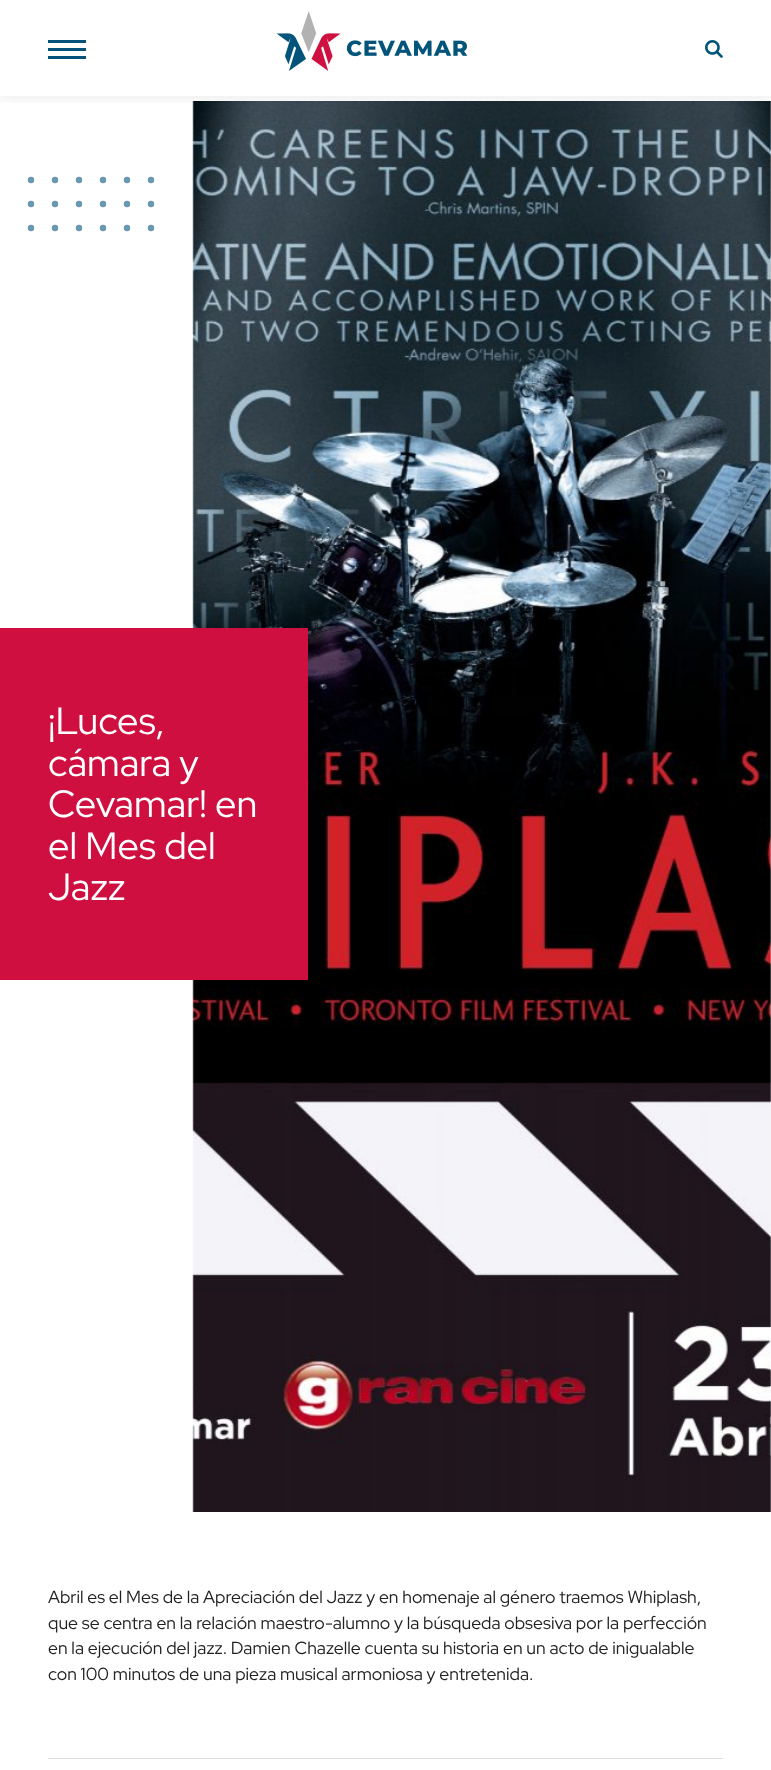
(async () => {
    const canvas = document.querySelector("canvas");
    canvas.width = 771;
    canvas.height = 1770;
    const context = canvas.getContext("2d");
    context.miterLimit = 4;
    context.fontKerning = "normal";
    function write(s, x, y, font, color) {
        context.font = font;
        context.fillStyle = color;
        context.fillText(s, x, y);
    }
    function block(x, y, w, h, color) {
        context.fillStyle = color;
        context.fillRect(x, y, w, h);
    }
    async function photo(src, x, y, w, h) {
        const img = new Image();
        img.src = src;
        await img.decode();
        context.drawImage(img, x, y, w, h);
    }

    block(0, 0, 771, 1770, "rgb(255, 255, 255)");
    await photo("media/3.png", 192, 101, 579, 1411);
    context.save();
    context.beginPath();
    context.rect(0, 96, 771, 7);
    context.clip();
    context.fillStyle = "rgba(0, 0, 0, 0.1)";
    context.filter = "blur(8px)";
    context.beginPath();
    context.rect(0, 0, 771, 96);
    context.fill();
    context.filter = "none";
    context.restore();
    block(48, 40, 38, 3, "rgb(0, 84, 122)");
    block(48, 48, 38, 3, "rgb(0, 84, 122)");
    block(48, 56, 38, 3, "rgb(0, 84, 122)");
    await photo("media/1.png", 276, 11, 192, 60);
    await photo("media/2.png", 705, 40, 18, 18);
    context.beginPath();
    context.moveTo(31, 180);
    context.lineTo(151.2, 180);
    context.strokeStyle = "rgb(102, 152, 175)";
    context.lineWidth = 6.4;
    context.lineCap = "round";
    context.setLineDash([0, 24]);
    context.stroke();
    context.beginPath();
    context.moveTo(31, 204);
    context.lineTo(151.2, 204);
    context.stroke();
    context.beginPath();
    context.moveTo(31, 228);
    context.lineTo(151.2, 228);
    context.stroke();
    block(0, 628, 308, 352, "rgb(206, 15, 64)");
    write("¡Luces,", 48, 734, "38px Red Hat Display", "rgb(255, 255, 255)");
    write("cámara y", 48, 776, "38px Red Hat Display", "rgb(255, 255, 255)");
    write("Cevamar! en", 48, 817, "38px Red Hat Display", "rgb(255, 255, 255)");
    write("el Mes del", 48, 859, "38px Red Hat Display", "rgb(255, 255, 255)");
    write("Jazz", 48, 900, "38px Red Hat Display", "rgb(255, 255, 255)");
    write("Abril es el Mes de la Apreciación del Jazz y en homenaje al género traemos Whiplash,", 48, 1603, "17.6px Red Hat Display", "rgb(34, 34, 34)");
    write("que se centra en la relación maestro-alumno y la búsqueda obsesiva por la perfección", 48, 1629, "17.6px Red Hat Display", "rgb(34, 34, 34)");
    write("en la ejecución del jazz. Damien Chazelle cuenta su historia en un acto de inigualable", 48, 1654, "17.6px Red Hat Display", "rgb(34, 34, 34)");
    write("con 100 minutos de una pieza musical armoniosa y entretenida.", 48, 1680, "17.6px Red Hat Display", "rgb(34, 34, 34)");
    block(48, 1758, 675, 1, "rgb(221, 221, 221)");
})();
